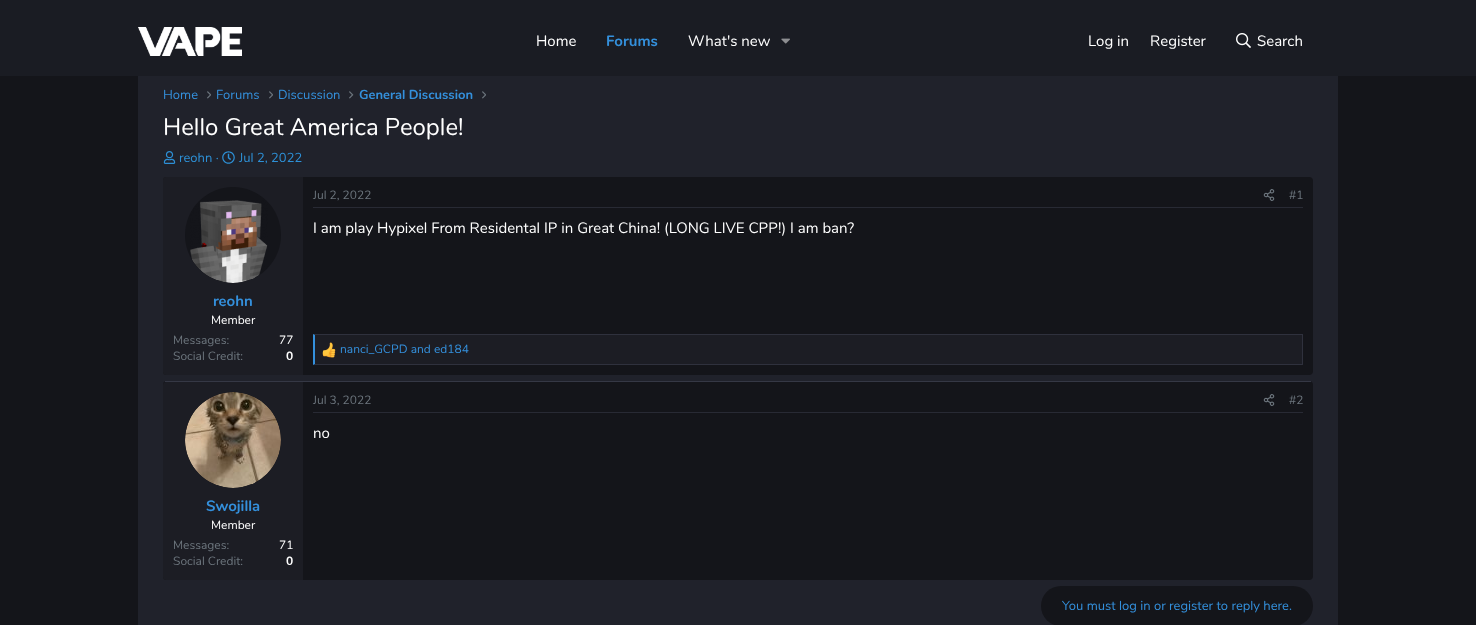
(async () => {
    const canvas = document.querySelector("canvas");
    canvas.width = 1476;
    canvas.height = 625;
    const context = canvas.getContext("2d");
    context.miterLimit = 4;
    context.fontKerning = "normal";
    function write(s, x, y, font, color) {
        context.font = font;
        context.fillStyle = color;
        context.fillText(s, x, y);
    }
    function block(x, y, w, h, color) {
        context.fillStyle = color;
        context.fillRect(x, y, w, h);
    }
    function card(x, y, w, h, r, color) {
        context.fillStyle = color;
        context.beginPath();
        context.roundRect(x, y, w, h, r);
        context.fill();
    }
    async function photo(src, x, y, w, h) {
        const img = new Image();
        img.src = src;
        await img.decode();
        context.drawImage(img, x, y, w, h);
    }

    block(0, 0, 1476, 625, "rgb(20, 21, 26)");
    block(0, 0, 1476, 76, "rgb(26, 28, 35)");
    await photo("media/1.png", 138, 27, 104, 29);
    write("Home", 536, 46, "15px Nunito", "rgb(255, 255, 255)");
    write("Forums", 606, 46, "bold 15px Nunito", "rgb(52, 144, 220)");
    write("What's new", 688, 46, "15px Nunito", "rgb(255, 255, 255)");
    await photo("media/2.png", 781, 38, 9, 6);
    write("Log in", 1088, 46, "15px Nunito", "rgb(255, 255, 255)");
    write("Register", 1150, 46, "15px Nunito", "rgb(255, 255, 255)");
    await photo("media/3.png", 1236, 33, 15, 15);
    write("Search", 1257, 46, "15px Nunito", "rgb(255, 255, 255)");
    block(138, 76, 1200, 549, "rgb(32, 34, 43)");
    write("Home", 163, 99, "13px Nunito", "rgb(52, 144, 220)");
    await photo("media/4.png", 207, 91, 4, 8);
    write("Forums", 216, 99, "13px Nunito", "rgb(52, 144, 220)");
    await photo("media/4.png", 269, 91, 4, 8);
    write("Discussion", 278, 99, "13px Nunito", "rgb(52, 144, 220)");
    await photo("media/5.png", 349, 91, 5, 8);
    write("General Discussion", 359, 99, "bold 13px Nunito", "rgb(52, 144, 220)");
    await photo("media/4.png", 482, 91, 4, 8);
    write("Hello Great America People!", 163, 135, "24px Nunito", "rgb(255, 255, 255)");
    await photo("media/6.png", 163, 151, 13, 13);
    write("reohn ·", 179, 162, "13px Nunito", "rgb(45, 144, 214)");
    await photo("media/7.png", 222, 151, 13, 13);
    write("Jul 2, 2022", 239, 162, "13px Nunito", "rgb(45, 144, 214)");
    card(163, 177, 1150, 198, 4, "rgb(20, 21, 26)");
    context.fillStyle = "rgb(28, 29, 36)";
    context.beginPath();
    context.roundRect(163, 177, 140, 198, [3, 0, 0, 3]);
    context.fill();
    context.fillStyle = "rgb(20, 21, 26)";
    context.beginPath();
    context.arc(233, 235, 48, 0, Math.PI * 2);
    context.fill();
    await photo("media/8.png", 190, 200, 78, 83);
    write("reohn", 213, 306, "bold 15px Nunito", "rgb(52, 144, 220)");
    write("Member", 211, 324, "12px Nunito", "rgb(255, 255, 255)");
    write("Messages:", 173, 344, "12px Nunito", "rgb(108, 117, 125)");
    write("77", 279, 344, "12px Nunito", "rgb(255, 255, 255)");
    write("Social Credit:", 173, 360, "12px Nunito", "rgb(108, 117, 125)");
    write("0", 286, 360, "bold 12px Nunito", "rgb(255, 255, 255)");
    block(313, 207, 990, 1, "rgb(40, 42, 52)");
    write("Jul 2, 2022", 313, 199, "12px Nunito", "rgb(108, 117, 125)");
    await photo("media/9.png", 1263, 189, 12, 12);
    write("#1", 1289, 199, "12px Nunito", "rgb(108, 117, 125)");
    write("I am play Hypixel From Residental IP in Great China! (LONG LIVE CPP!) I am ban?", 313, 233, "15px Nunito", "rgb(255, 255, 255)");
    block(315, 335, 987, 29, "rgb(28, 29, 36)");
    context.fillStyle = "rgb(47, 49, 61)";
    context.beginPath();
    context.moveTo(313, 334);
    context.lineTo(1303, 334);
    context.lineTo(1302, 335);
    context.lineTo(315, 335);
    context.closePath();
    context.fill();
    block(1302, 334, 1, 31, "rgb(47, 49, 61)");
    context.beginPath();
    context.moveTo(1303, 365);
    context.lineTo(313, 365);
    context.lineTo(315, 364);
    context.lineTo(1302, 364);
    context.closePath();
    context.fill();
    context.fillStyle = "rgb(52, 144, 220)";
    context.beginPath();
    context.moveTo(313, 365);
    context.lineTo(313, 334);
    context.lineTo(315, 335);
    context.lineTo(315, 364);
    context.closePath();
    context.fill();
    await photo("media/10.png", 322, 342, 14, 16);
    write("nanci_GCPD and ed184", 340, 353, "12px Nunito", "rgb(52, 144, 220)");
    card(163, 381, 1150, 199, 4, "rgb(20, 21, 26)");
    block(165, 381, 1146, 1, "rgb(53, 56, 69)");
    block(313, 412, 990, 1, "rgb(40, 42, 52)");
    write("Jul 3, 2022", 313, 404, "12px Nunito", "rgb(108, 117, 125)");
    await photo("media/9.png", 1263, 394, 12, 12);
    write("#2", 1289, 404, "12px Nunito", "rgb(108, 117, 125)");
    write("no", 313, 438, "15px Nunito", "rgb(255, 255, 255)");
    context.fillStyle = "rgb(28, 29, 36)";
    context.beginPath();
    context.roundRect(163, 382, 140, 198, [3, 0, 0, 3]);
    context.fill();
    context.fillStyle = "rgb(20, 21, 26)";
    context.beginPath();
    context.arc(233, 440, 48, 0, Math.PI * 2);
    context.fill();
    await photo("media/11.png", 185, 392, 96, 96);
    write("Swojilla", 206, 511, "bold 15px Nunito", "rgb(52, 144, 220)");
    write("Member", 211, 529, "12px Nunito", "rgb(255, 255, 255)");
    write("Messages:", 173, 549, "12px Nunito", "rgb(108, 117, 125)");
    write("71", 279, 549, "12px Nunito", "rgb(255, 255, 255)");
    write("Social Credit:", 173, 565, "12px Nunito", "rgb(108, 117, 125)");
    write("0", 286, 565, "bold 12px Nunito", "rgb(255, 255, 255)");
    card(1041, 586, 272, 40, 20, "rgb(20, 21, 26)");
    write("You must log in or register to reply here.", 1062, 610, "13px Nunito", "rgb(52, 144, 220)");
})();
